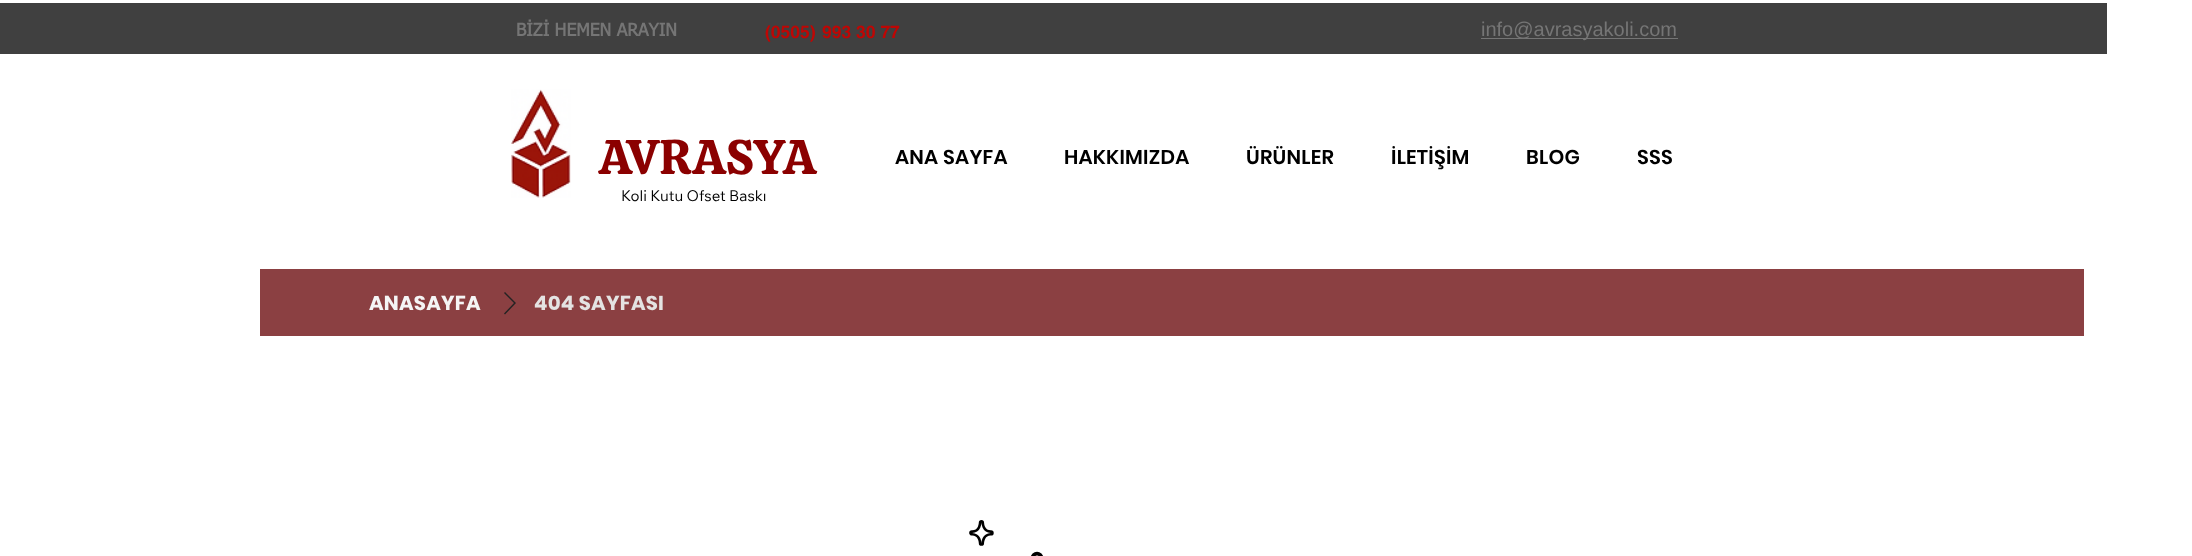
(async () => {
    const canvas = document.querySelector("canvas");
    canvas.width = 2192;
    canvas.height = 556;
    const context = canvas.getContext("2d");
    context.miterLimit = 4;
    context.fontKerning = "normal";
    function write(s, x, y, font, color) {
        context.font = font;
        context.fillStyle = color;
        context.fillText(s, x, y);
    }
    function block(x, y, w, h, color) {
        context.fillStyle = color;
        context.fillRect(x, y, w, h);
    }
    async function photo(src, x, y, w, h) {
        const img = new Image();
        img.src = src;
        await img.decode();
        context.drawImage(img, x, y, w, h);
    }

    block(0, 0, 2192, 556, "rgb(255, 255, 255)");
    block(0, 3, 2107, 51, "rgb(64, 64, 64)");
    write("BİZİ HEMEN ARAYIN", 516, 36, "bold 17.5px tahoma", "rgb(117, 117, 117)");
    write("(0505)", 765, 38, "bold 17.5px helvetica", "rgb(191, 6, 4)");
    write("993 30 77", 822, 38, "bold 17.5px helvetica", "rgb(191, 6, 4)");
    block(1481, 38, 197, 1, "rgb(117, 117, 117)");
    write("info@avrasyakoli.com", 1481, 36, "20px Liberation Sans", "rgb(117, 117, 117)");
    await photo("media/1.png", 511, 89, 60, 109);
    write("AVRASYA", 599, 174, "48.75px Calistoga", "rgb(139, 0, 0)");
    context.letterSpacing = "0.25px";
    write("ANA SAYFA", 895, 164, "600 20px Poppins", "rgb(0, 0, 0)");
    write("HAKKIMIZDA", 1064, 164, "600 20px Poppins", "rgb(0, 0, 0)");
    write("ÜRÜNLER", 1246, 164, "600 20px Poppins", "rgb(0, 0, 0)");
    write("İLETİŞİM", 1391, 164, "600 20px Poppins", "rgb(0, 0, 0)");
    write("BLOG", 1526, 164, "600 20px Poppins", "rgb(0, 0, 0)");
    write("SSS", 1637, 164, "600 20px Poppins", "rgb(0, 0, 0)");
    context.letterSpacing = "0px";
    write("Koli Kutu Ofset Baskı", 621, 201, "15px Wix Madefor Text", "rgb(0, 0, 0)");
    block(260, 269, 1824, 67, "rgb(139, 64, 66)");
    context.letterSpacing = "0.25px";
    write("ANASAYFA", 369, 310, "bold 20px Poppins", "rgb(245, 245, 245)");
    context.fillStyle = "rgb(36, 35, 35)";
    context.beginPath();
    context.moveTo(505, 314.5);
    context.lineTo(504, 313.5);
    context.lineTo(514, 303);
    context.lineTo(504, 293);
    context.lineTo(505, 292);
    context.lineTo(516, 303);
    context.closePath();
    context.fill("evenodd");
    write("404 SAYFASI", 534, 310, "bold 20px Poppins", "rgb(228, 227, 226)");
    await photo("media/2.png", 969, 520, 74, 36);
})();
